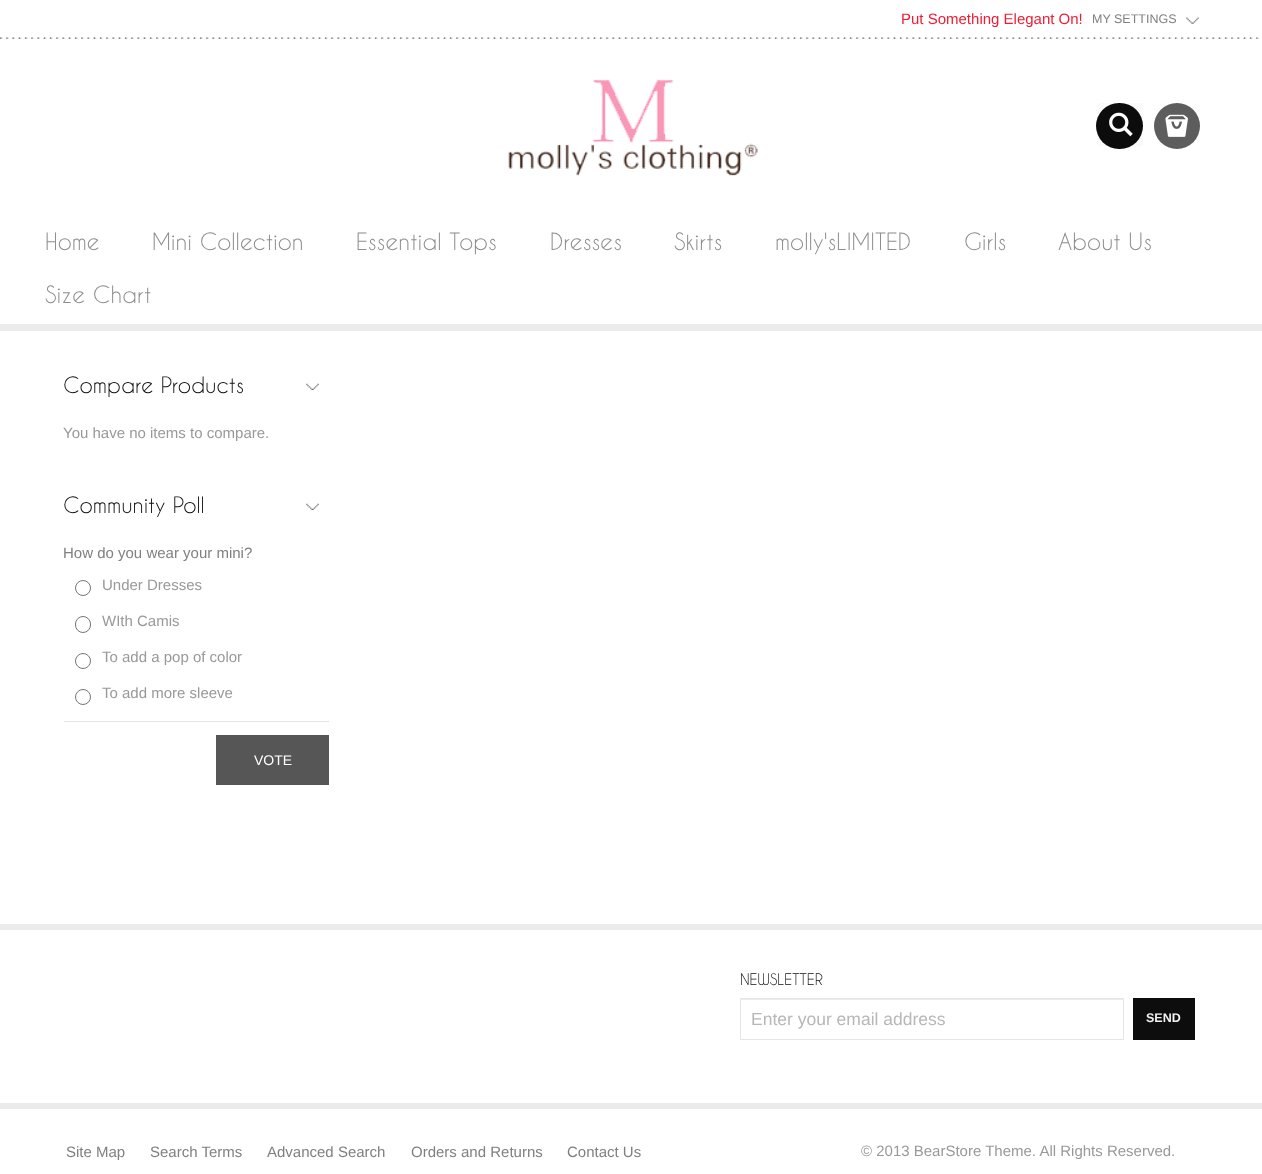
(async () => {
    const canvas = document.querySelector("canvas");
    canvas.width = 1262;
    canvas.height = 1174;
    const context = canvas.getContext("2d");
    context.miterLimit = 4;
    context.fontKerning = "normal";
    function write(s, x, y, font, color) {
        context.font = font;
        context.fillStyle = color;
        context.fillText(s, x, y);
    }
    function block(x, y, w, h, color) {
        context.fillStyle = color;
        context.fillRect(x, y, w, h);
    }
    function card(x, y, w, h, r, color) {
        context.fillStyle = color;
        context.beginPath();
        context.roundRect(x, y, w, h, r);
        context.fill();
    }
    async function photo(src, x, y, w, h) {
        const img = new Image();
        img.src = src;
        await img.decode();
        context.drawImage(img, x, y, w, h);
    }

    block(0, 0, 1262, 1174, "rgb(255, 255, 255)");
    await photo("media/1.png", 0, 37, 1259, 2);
    write("Put Something Elegant On!", 901, 24, "15px Liberation Sans", "rgb(240, 28, 53)");
    await photo("media/2.png", 1186, 17, 13, 7);
    write("MY SETTINGS", 1092, 23, "12.5px Liberation Sans", "rgb(128, 128, 128)");
    await photo("media/3.png", 508, 79, 250, 97);
    block(1098, 103, 45, 43, "rgb(250, 251, 249)");
    card(1096, 103, 47, 46, 23, "rgb(12, 12, 12)");
    await photo("media/4.png", 1109, 112, 24, 25);
    context.fillStyle = "rgb(93, 93, 93)";
    context.beginPath();
    context.arc(1177, 126, 23, 0, Math.PI * 2);
    context.fill();
    await photo("media/5.png", 1165, 114, 23, 23);
    write("Home", 45, 250, "22.5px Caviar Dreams", "rgb(141, 141, 141)");
    write("Mini Collection", 152, 250, "22.5px Caviar Dreams", "rgb(141, 141, 141)");
    write("Essential Tops", 356, 250, "22.5px Caviar Dreams", "rgb(141, 141, 141)");
    write("Dresses", 550, 250, "22.5px Caviar Dreams", "rgb(141, 141, 141)");
    write("Skirts", 674, 250, "22.5px Caviar Dreams", "rgb(141, 141, 141)");
    write("molly'sLIMITED", 775, 250, "22.5px Caviar Dreams", "rgb(141, 141, 141)");
    write("Girls", 964, 250, "22.5px Caviar Dreams", "rgb(141, 141, 141)");
    write("About Us", 1058, 250, "22.5px Caviar Dreams", "rgb(141, 141, 141)");
    write("Size Chart", 45, 303, "22.5px Caviar Dreams", "rgb(141, 141, 141)");
    block(0, 324, 1262, 6, "rgb(235, 235, 235)");
    block(0, 330, 1262, 1, "rgb(237, 237, 237)");
    await photo("media/6.png", 306, 383, 13, 7);
    write("Compare Products", 63, 393, "21.25px Caviar Dreams", "rgb(13, 13, 13)");
    write("You have no items to compare.", 63, 438, "15px Liberation Sans", "rgb(153, 153, 153)");
    await photo("media/6.png", 306, 503, 13, 7);
    write("Community Poll", 63, 513, "21.25px Caviar Dreams", "rgb(13, 13, 13)");
    write("How do you wear your mini?", 63, 558, "15px Liberation Sans", "rgb(128, 128, 128)");
    context.beginPath();
    context.arc(83, 588, 7.5, 0, Math.PI * 2);
    context.strokeStyle = "rgb(118, 118, 118)";
    context.stroke();
    write("Under Dresses", 102, 590, "15px Liberation Sans", "rgb(153, 153, 153)");
    context.beginPath();
    context.roundRect(75.5, 616.5, 15, 16, 7.5);
    context.stroke();
    write("WIth Camis", 102, 626, "15px Liberation Sans", "rgb(153, 153, 153)");
    context.beginPath();
    context.arc(83, 661, 7.5, 0, Math.PI * 2);
    context.stroke();
    write("To add a pop of color", 102, 662, "15px Liberation Sans", "rgb(153, 153, 153)");
    context.beginPath();
    context.arc(83, 697, 7.5, 0, Math.PI * 2);
    context.stroke();
    write("To add more sleeve", 102, 698, "15px Liberation Sans", "rgb(153, 153, 153)");
    block(64, 721, 265, 1, "rgb(227, 227, 227)");
    block(216, 735, 113, 50, "rgb(86, 86, 86)");
    write("VOTE", 254, 765, "14px Liberation Sans", "rgb(255, 255, 255)");
    block(0, 924, 1262, 6, "rgb(235, 235, 235)");
    write("NEWSLETTER", 740, 985, "15px Caviar Dreams", "rgb(13, 13, 13)");
    block(741, 999, 382, 1, "rgb(236, 236, 236)");
    context.strokeStyle = "rgb(229, 229, 229)";
    context.strokeRect(740.5, 998.5, 383, 41);
    write("Enter your email address", 751, 1025, "17.5px Liberation Sans", "rgb(183, 183, 183)");
    block(1133, 998, 62, 42, "rgb(13, 13, 13)");
    write("SEND", 1146, 1022, "bold 12.5px Liberation Sans", "rgb(240, 240, 240)");
    block(0, 1103, 1262, 6, "rgb(235, 235, 235)");
    write("Site Map", 66, 1157, "15px Liberation Sans", "rgb(128, 128, 128)");
    write("Search Terms", 150, 1157, "15px Liberation Sans", "rgb(128, 128, 128)");
    write("Advanced Search", 267, 1157, "15px Liberation Sans", "rgb(128, 128, 128)");
    write("Orders and Returns", 411, 1157, "15px Liberation Sans", "rgb(128, 128, 128)");
    write("Contact Us", 567, 1157, "15px Liberation Sans", "rgb(128, 128, 128)");
    write("© 2013 BearStore Theme. All Rights Reserved.", 861, 1156, "15px Liberation Sans", "rgb(153, 153, 153)");
})();
